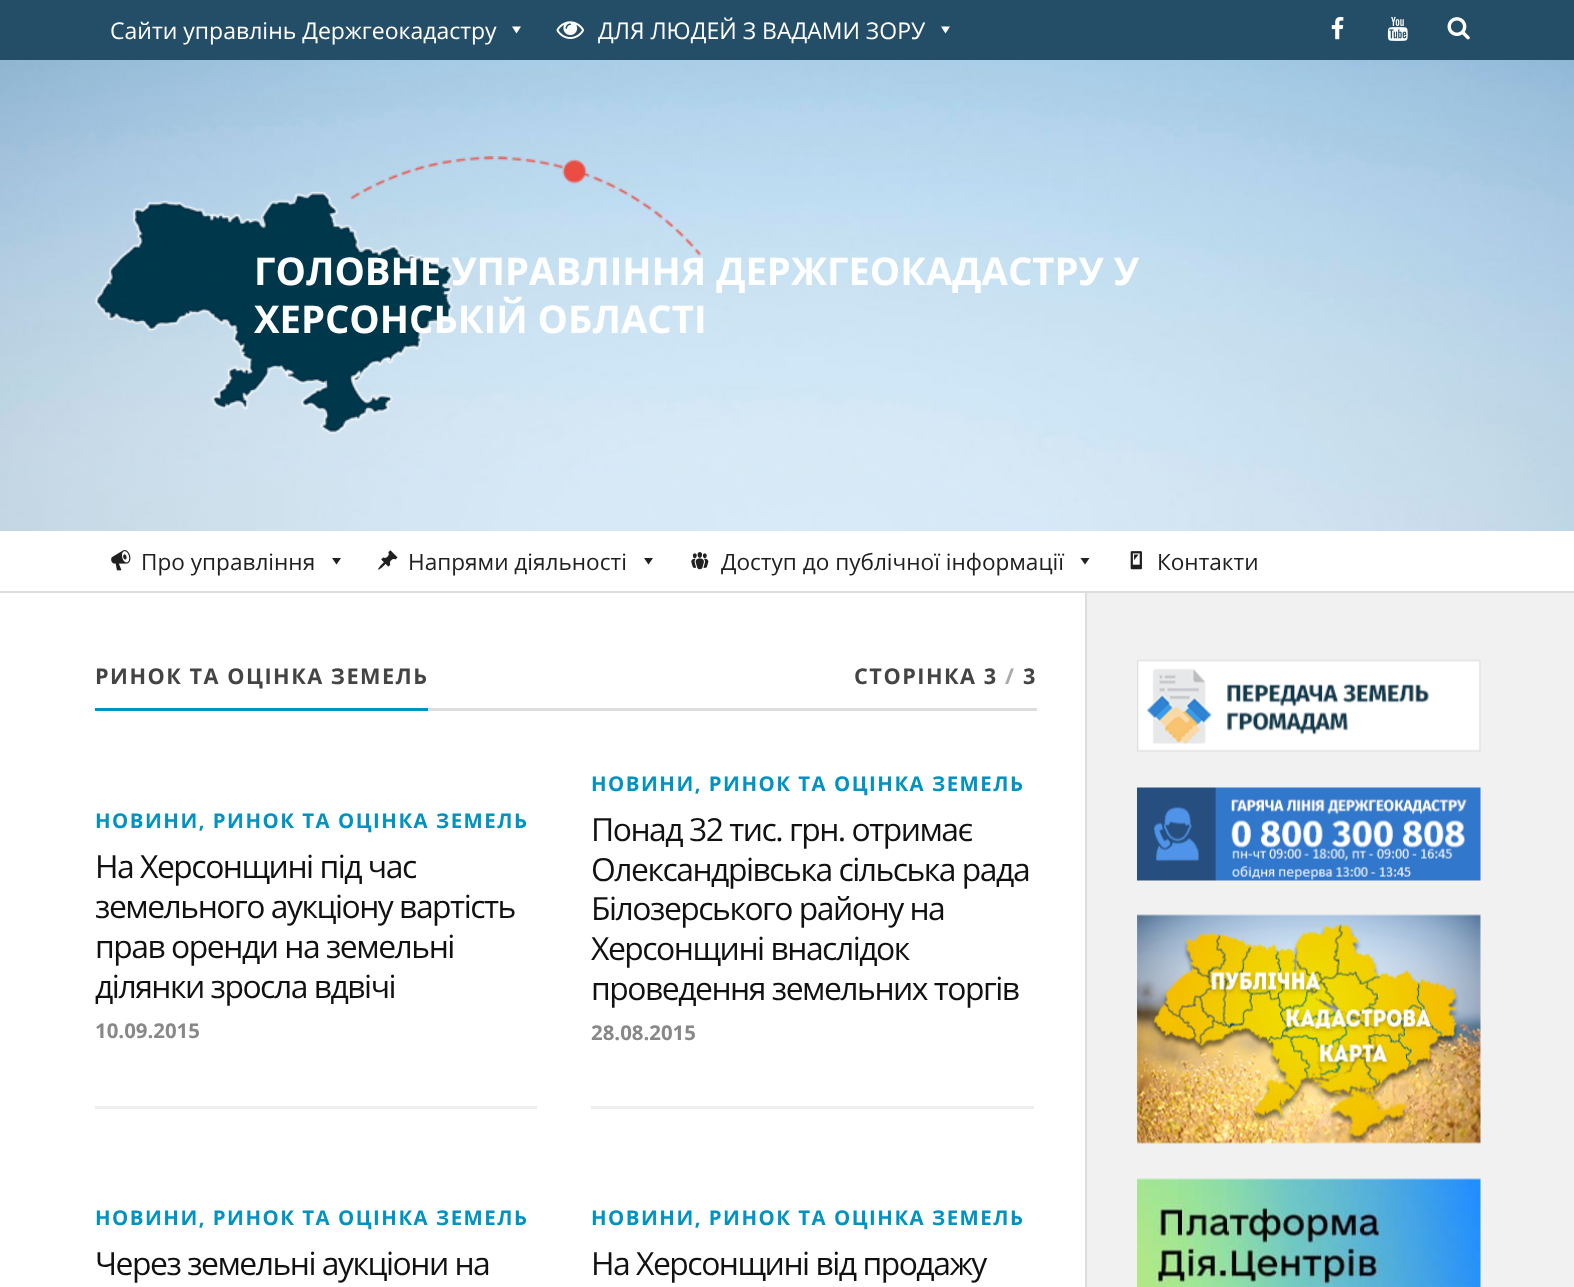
(async () => {
    const canvas = document.querySelector("canvas");
    canvas.width = 1574;
    canvas.height = 1287;
    const context = canvas.getContext("2d");
    context.miterLimit = 4;
    context.fontKerning = "normal";
    function write(s, x, y, font, color) {
        context.font = font;
        context.fillStyle = color;
        context.fillText(s, x, y);
    }
    function block(x, y, w, h, color) {
        context.fillStyle = color;
        context.fillRect(x, y, w, h);
    }
    async function photo(src, x, y, w, h) {
        const img = new Image();
        img.src = src;
        await img.decode();
        context.drawImage(img, x, y, w, h);
    }

    block(0, 0, 1574, 1287, "rgb(241, 241, 241)");
    block(0, 0, 1574, 60, "rgb(36, 77, 103)");
    write("Сайти управлінь Держгеокадастру", 110, 39, "23px Open Sans", "rgb(255, 255, 255)");
    context.beginPath();
    context.moveTo(521, 26.5);
    context.lineTo(516.5, 33.5);
    context.lineTo(512, 26.5);
    context.closePath();
    context.fill();
    await photo("media/1.png", 556, 21, 28, 18);
    write("ДЛЯ ЛЮДЕЙ З ВАДАМИ ЗОРУ", 598, 39, "23px Open Sans", "rgb(255, 255, 255)");
    context.beginPath();
    context.moveTo(950, 26.5);
    context.lineTo(945.5, 33.5);
    context.lineTo(941, 26.5);
    context.closePath();
    context.fill();
    await photo("media/2.png", 1331, 16, 13, 24);
    await photo("media/3.png", 1387, 16, 21, 25);
    await photo("media/4.png", 1447, 17, 23, 23);
    await photo("media/5.png", 0, 60, 1574, 471);
    await photo("media/6.png", 94, 156, 607, 278);
    write("ГОЛОВНЕ УПРАВЛІННЯ ДЕРЖГЕОКАДАСТРУ У", 254, 285, "bold 38.25px Open Sans", "rgb(255, 255, 255)");
    write("ХЕРСОНСЬКІЙ ОБЛАСТІ", 254, 333, "bold 38.25px Open Sans", "rgb(255, 255, 255)");
    block(0, 531, 1574, 60, "rgb(255, 255, 255)");
    block(0, 591, 1574, 2, "rgb(221, 221, 221)");
    await photo("media/7.png", 111, 550, 20, 21);
    write("Про управління", 141, 570, "22.6px Open Sans", "rgb(32, 32, 32)");
    context.beginPath();
    context.moveTo(341, 558);
    context.lineTo(336.5, 564.5);
    context.lineTo(332, 558);
    context.closePath();
    context.fill();
    await photo("media/8.png", 378, 550, 20, 20);
    write("Напрями діяльності", 408, 570, "22.6px Open Sans", "rgb(32, 32, 32)");
    context.beginPath();
    context.moveTo(653, 558);
    context.lineTo(648.5, 564.5);
    context.lineTo(644, 558);
    context.closePath();
    context.fill();
    await photo("media/9.png", 691, 552, 18, 18);
    write("Доступ до публічної інформації", 721, 570, "22.6px Open Sans", "rgb(32, 32, 32)");
    context.beginPath();
    context.moveTo(1089.5, 558);
    context.lineTo(1085, 564.5);
    context.lineTo(1080.5, 558);
    context.closePath();
    context.fill();
    await photo("media/10.png", 1130, 551, 12, 19);
    write("Контакти", 1157, 570, "22.6px Open Sans", "rgb(32, 32, 32)");
    block(0, 593, 1085, 694, "rgb(255, 255, 255)");
    block(428, 708, 609, 3, "rgb(221, 221, 221)");
    block(95, 708, 333, 3, "rgb(0, 147, 194)");
    context.letterSpacing = "1.5px";
    write("РИНОК ТА ОЦІНКА ЗЕМЕЛЬ", 95, 684, "bold 21.7px Open Sans", "rgb(68, 68, 68)");
    write("СТОРІНКА 3", 854, 684, "bold 21.7px Open Sans", "rgb(68, 68, 68)");
    write("/", 1005, 684, "bold 21.7px Open Sans", "rgb(170, 170, 170)");
    write("3", 1023, 684, "bold 21.7px Open Sans", "rgb(68, 68, 68)");
    write("НОВИНИ, РИНОК ТА ОЦІНКА ЗЕМЕЛЬ", 95, 828, "bold 20.4px Open Sans", "rgb(0, 147, 194)");
    context.letterSpacing = "-1.5px";
    write("На Херсонщині під час", 95, 878, "31.9px Open Sans", "rgb(17, 17, 17)");
    write("земельного аукціону вартість", 95, 918, "31.9px Open Sans", "rgb(17, 17, 17)");
    write("прав оренди на земельні", 95, 958, "31.9px Open Sans", "rgb(17, 17, 17)");
    write("ділянки зросла вдвічі", 95, 998, "31.9px Open Sans", "rgb(17, 17, 17)");
    context.letterSpacing = "0px";
    write("10.09.2015", 95, 1038, "bold 20.4px Open Sans", "rgb(136, 136, 136)");
    context.letterSpacing = "1.5px";
    write("НОВИНИ, РИНОК ТА ОЦІНКА ЗЕМЕЛЬ", 591, 791, "bold 20.4px Open Sans", "rgb(0, 147, 194)");
    context.letterSpacing = "-1.5px";
    write("Понад 32 тис. грн. отримає", 591, 841, "31.9px Open Sans", "rgb(17, 17, 17)");
    write("Олександрівська сільська рада", 591, 881, "31.9px Open Sans", "rgb(17, 17, 17)");
    write("Білозерського району на", 591, 920, "31.9px Open Sans", "rgb(17, 17, 17)");
    write("Херсонщині внаслідок", 591, 960, "31.9px Open Sans", "rgb(17, 17, 17)");
    write("проведення земельних торгів", 591, 1000, "31.9px Open Sans", "rgb(17, 17, 17)");
    context.letterSpacing = "0px";
    write("28.08.2015", 591, 1040, "bold 20.4px Open Sans", "rgb(136, 136, 136)");
    block(95, 1106, 442, 3, "rgb(238, 238, 238)");
    context.letterSpacing = "1.5px";
    write("НОВИНИ, РИНОК ТА ОЦІНКА ЗЕМЕЛЬ", 95, 1225, "bold 20.4px Open Sans", "rgb(0, 147, 194)");
    context.letterSpacing = "-1.5px";
    write("Через земельні аукціони на", 95, 1275, "31.9px Open Sans", "rgb(17, 17, 17)");
    block(591, 1106, 443, 3, "rgb(238, 238, 238)");
    context.letterSpacing = "1.5px";
    write("НОВИНИ, РИНОК ТА ОЦІНКА ЗЕМЕЛЬ", 591, 1225, "bold 20.4px Open Sans", "rgb(0, 147, 194)");
    context.letterSpacing = "-1.5px";
    write("На Херсонщині від продажу", 591, 1275, "31.9px Open Sans", "rgb(17, 17, 17)");
    block(1085, 593, 2, 694, "rgb(221, 221, 221)");
    await photo("media/11.png", 1137, 659, 344, 93);
    await photo("media/12.png", 1137, 787, 344, 94);
    await photo("media/13.png", 1137, 914, 344, 230);
    await photo("media/14.png", 1137, 1178, 344, 109);
})();
